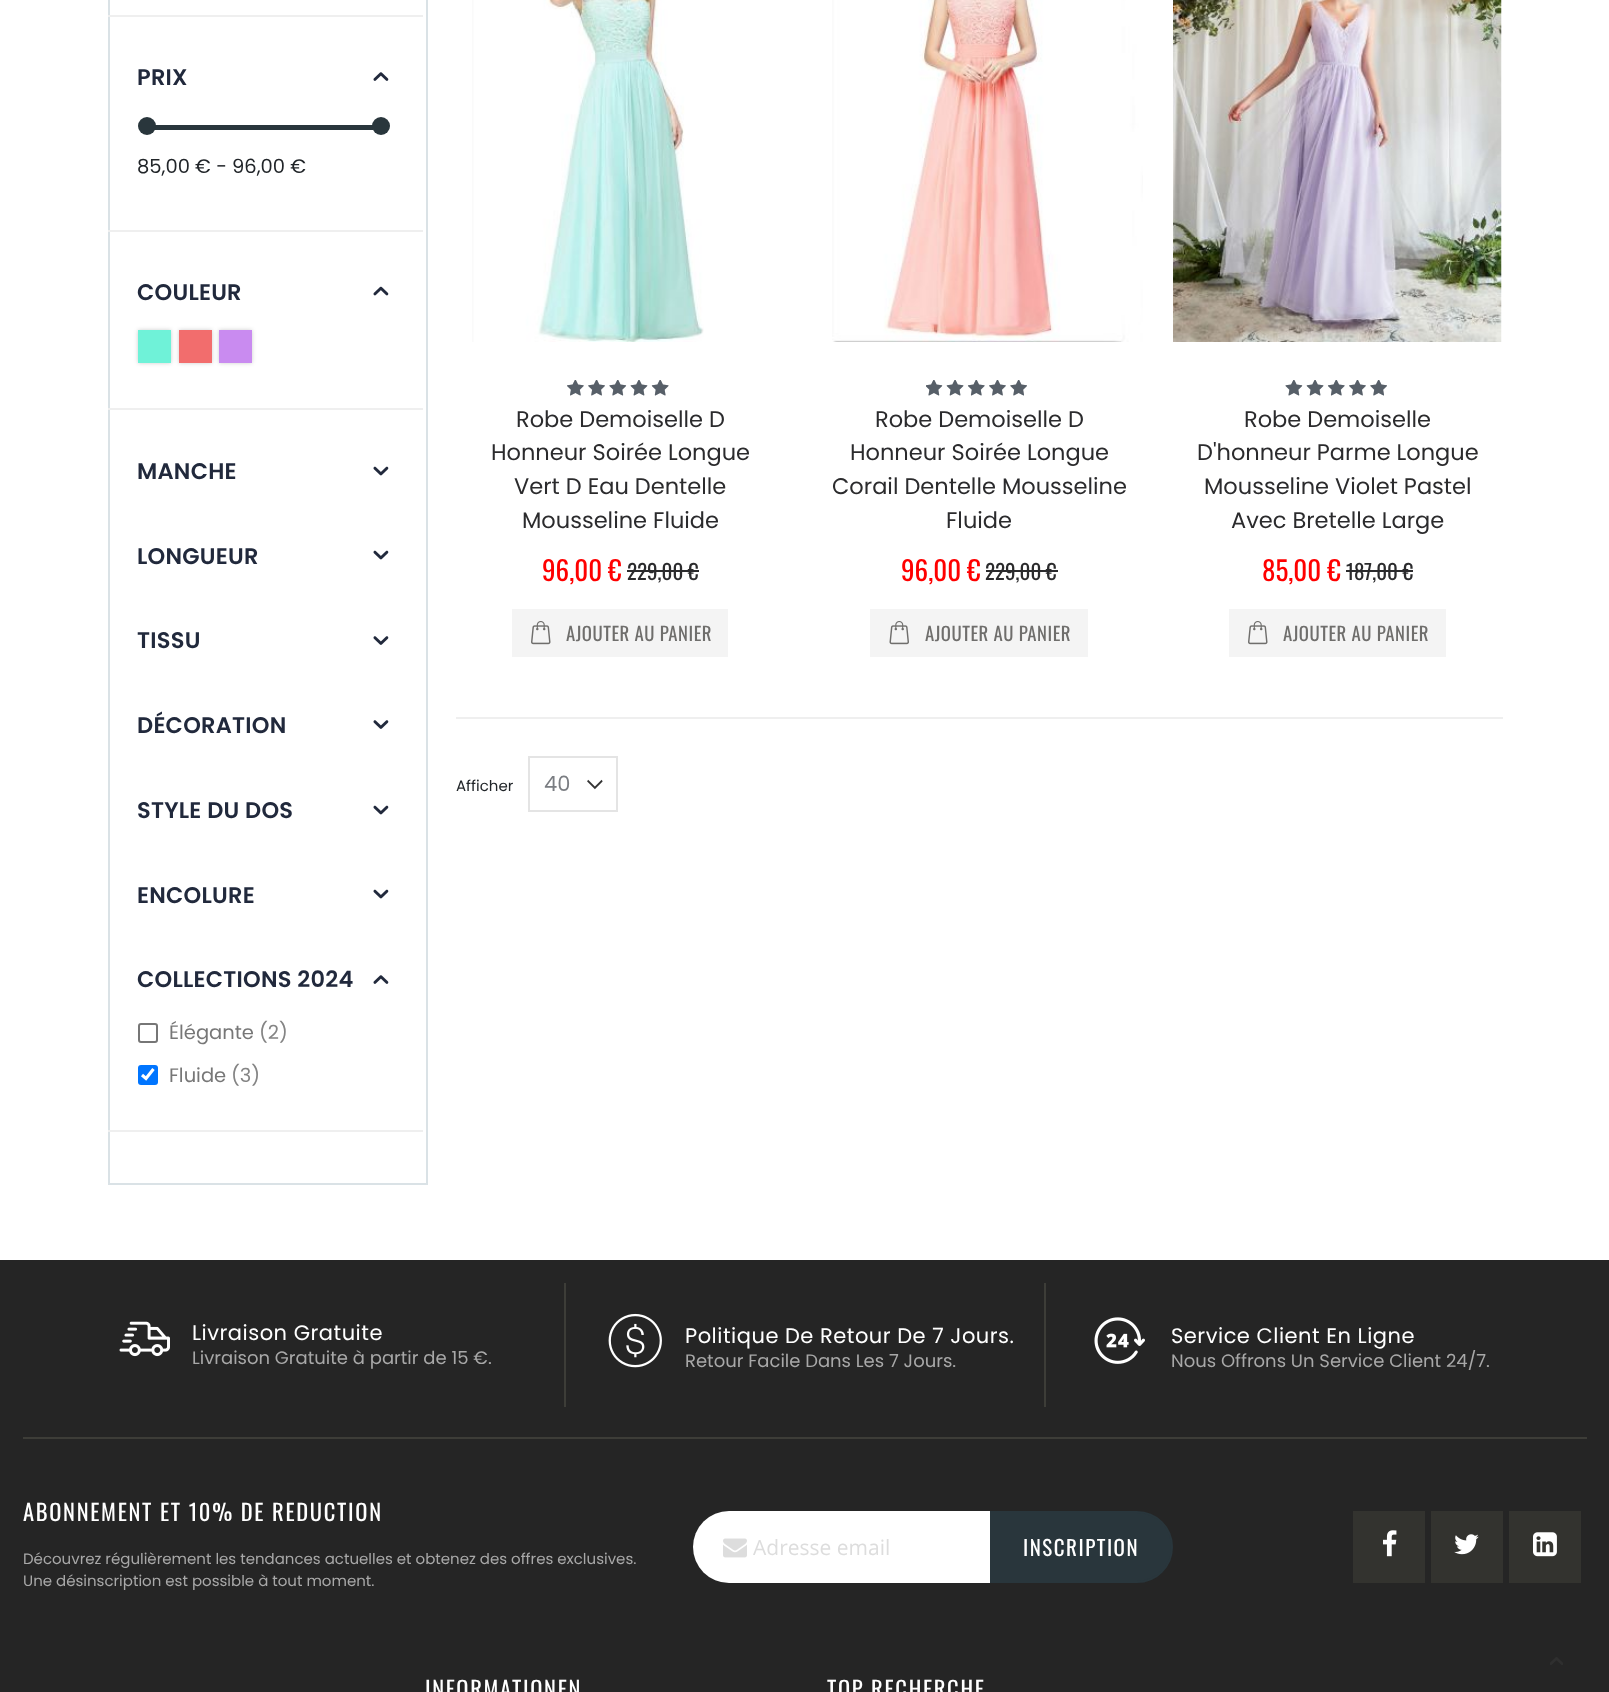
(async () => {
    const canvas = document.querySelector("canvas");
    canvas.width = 1609;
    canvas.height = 1692;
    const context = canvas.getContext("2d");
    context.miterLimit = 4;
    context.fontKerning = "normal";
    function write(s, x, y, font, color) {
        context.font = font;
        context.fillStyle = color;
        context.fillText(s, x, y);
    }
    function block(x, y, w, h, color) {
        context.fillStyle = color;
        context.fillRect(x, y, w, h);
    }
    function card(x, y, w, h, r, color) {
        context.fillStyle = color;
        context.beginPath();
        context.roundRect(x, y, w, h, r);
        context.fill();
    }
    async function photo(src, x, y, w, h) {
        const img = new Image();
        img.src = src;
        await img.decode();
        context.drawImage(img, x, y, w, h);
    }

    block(0, 0, 1609, 1692, "rgb(255, 255, 255)");
    context.strokeStyle = "rgb(218, 226, 230)";
    context.lineWidth = 2;
    context.strokeRect(109, -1, 318, 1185);
    block(108, 15, 315, 2, "rgb(239, 239, 239)");
    context.letterSpacing = "0.25px";
    write("PRIX", 137, 85, "600 22.5px Poppins", "rgb(33, 41, 60)");
    await photo("media/1.png", 373, 72, 16, 9);
    block(108, 230, 315, 2, "rgb(239, 239, 239)");
    block(149, 125, 224, 5, "rgb(41, 54, 60)");
    context.beginPath();
    context.arc(147, 126, 9, 0, Math.PI * 2);
    context.fill();
    context.beginPath();
    context.arc(381, 126, 9, 0, Math.PI * 2);
    context.fill();
    context.letterSpacing = "0px";
    write("85,00 € - 96,00 €", 137, 173, "19.5px Poppins", "rgb(33, 37, 41)");
    context.letterSpacing = "0.25px";
    write("COULEUR", 137, 300, "600 22.5px Poppins", "rgb(33, 41, 60)");
    await photo("media/2.png", 373, 286, 16, 10);
    block(108, 408, 315, 2, "rgb(239, 239, 239)");
    context.fillStyle = "rgba(0, 0, 0, 0.2)";
    context.filter = "blur(2px)";
    context.beginPath();
    context.rect(138, 330, 33, 33);
    context.fill();
    context.filter = "none";
    block(138, 330, 33, 33, "rgb(111, 242, 216)");
    context.fillStyle = "rgba(0, 0, 0, 0.2)";
    context.filter = "blur(2px)";
    context.beginPath();
    context.rect(179, 330, 33, 33);
    context.fill();
    context.filter = "none";
    block(179, 330, 33, 33, "rgb(242, 109, 109)");
    context.fillStyle = "rgba(0, 0, 0, 0.2)";
    context.filter = "blur(2px)";
    context.beginPath();
    context.rect(219, 330, 33, 33);
    context.fill();
    context.filter = "none";
    block(219, 330, 33, 33, "rgb(201, 139, 240)");
    write("MANCHE", 137, 479, "600 22.5px Poppins", "rgb(33, 41, 60)");
    await photo("media/3.png", 373, 466, 16, 10);
    write("LONGUEUR", 137, 564, "600 22.5px Poppins", "rgb(33, 41, 60)");
    await photo("media/3.png", 373, 550, 16, 10);
    write("TISSU", 137, 648, "600 22.5px Poppins", "rgb(33, 41, 60)");
    await photo("media/4.png", 373, 636, 16, 9);
    write("DÉCORATION", 137, 733, "600 22.5px Poppins", "rgb(33, 41, 60)");
    await photo("media/4.png", 373, 720, 16, 9);
    write("STYLE DU DOS", 137, 818, "600 22.5px Poppins", "rgb(33, 41, 60)");
    await photo("media/3.png", 373, 805, 16, 10);
    write("ENCOLURE", 137, 903, "600 22.5px Poppins", "rgb(33, 41, 60)");
    await photo("media/3.png", 373, 889, 16, 10);
    write("COLLECTIONS 2024", 137, 987, "600 22.5px Poppins", "rgb(33, 41, 60)");
    await photo("media/1.png", 373, 975, 16, 9);
    block(108, 1130, 315, 2, "rgb(239, 239, 239)");
    context.beginPath();
    context.roundRect(139, 1024, 18, 18, 2);
    context.strokeStyle = "rgb(118, 118, 118)";
    context.stroke();
    context.letterSpacing = "0px";
    write("Élégante", 169, 1039, "19.5px Poppins", "rgb(119, 119, 119)");
    write("(2)", 259, 1039, "19.5px Poppins", "rgb(133, 133, 133)");
    card(138, 1065, 20, 20, 3, "rgb(0, 117, 255)");
    context.beginPath();
    context.moveTo(142, 1075);
    context.lineTo(146, 1078.5);
    context.lineTo(153.5, 1069);
    context.strokeStyle = "rgb(255, 255, 255)";
    context.lineWidth = 3.1;
    context.stroke();
    write("Fluide", 169, 1082, "19.5px Poppins", "rgb(119, 119, 119)");
    write("(3)", 231, 1082, "19.5px Poppins", "rgb(133, 133, 133)");
    await photo("media/5.png", 472, 0, 232, 342);
    await photo("media/6.png", 567, 380, 102, 16);
    await photo("media/7.png", 567, 380, 102, 16);
    write("Robe Demoiselle D", 516, 427, "22.5px Poppins", "rgb(43, 43, 45)");
    write("Honneur Soirée Longue", 491, 460, "22.5px Poppins", "rgb(43, 43, 45)");
    write("Vert D Eau Dentelle", 514, 494, "22.5px Poppins", "rgb(43, 43, 45)");
    write("Mousseline Fluide", 522, 528, "22.5px Poppins", "rgb(43, 43, 45)");
    write("96,00 €", 542, 581, "27px Oswald", "rgb(255, 0, 0)");
    write("229,00 €", 627, 580, "21px Oswald", "rgb(43, 43, 45)");
    block(627, 570, 72, 2, "rgb(43, 43, 45)");
    block(512, 609, 216, 48, "rgb(244, 244, 244)");
    await photo("media/8.png", 531, 621, 20, 24);
    context.letterSpacing = "0.5px";
    write("AJOUTER AU PANIER", 566, 641, "18.75px Oswald", "rgb(111, 110, 108)");
    await photo("media/9.png", 832, 0, 311, 342);
    await photo("media/10.png", 926, 380, 101, 16);
    await photo("media/11.png", 926, 380, 101, 16);
    context.letterSpacing = "0px";
    write("Robe Demoiselle D", 875, 427, "22.5px Poppins", "rgb(43, 43, 45)");
    write("Honneur Soirée Longue", 850, 460, "22.5px Poppins", "rgb(43, 43, 45)");
    write("Corail Dentelle Mousseline", 832, 494, "22.5px Poppins", "rgb(43, 43, 45)");
    write("Fluide", 946, 528, "22.5px Poppins", "rgb(43, 43, 45)");
    write("96,00 €", 901, 581, "27px Oswald", "rgb(255, 0, 0)");
    write("229,00 €", 985, 580, "21px Oswald", "rgb(43, 43, 45)");
    block(986, 570, 72, 2, "rgb(43, 43, 45)");
    block(870, 609, 218, 48, "rgb(244, 244, 244)");
    await photo("media/12.png", 889, 621, 20, 24);
    context.letterSpacing = "0.5px";
    write("AJOUTER AU PANIER", 925, 641, "18.75px Oswald", "rgb(111, 110, 108)");
    await photo("media/13.png", 1173, 0, 329, 342);
    await photo("media/14.png", 1285, 380, 102, 16);
    await photo("media/15.png", 1285, 380, 102, 16);
    context.letterSpacing = "0px";
    write("Robe Demoiselle", 1244, 427, "22.5px Poppins", "rgb(43, 43, 45)");
    write("D'honneur Parme Longue", 1197, 460, "22.5px Poppins", "rgb(43, 43, 45)");
    write("Mousseline Violet Pastel", 1204, 494, "22.5px Poppins", "rgb(43, 43, 45)");
    write("Avec Bretelle Large", 1231, 528, "22.5px Poppins", "rgb(43, 43, 45)");
    write("85,00 €", 1262, 581, "27px Oswald", "rgb(255, 0, 0)");
    write("187,00 €", 1346, 580, "21px Oswald", "rgb(43, 43, 45)");
    block(1346, 570, 67, 2, "rgb(43, 43, 45)");
    block(1229, 609, 217, 48, "rgb(244, 244, 244)");
    await photo("media/8.png", 1248, 621, 20, 24);
    context.letterSpacing = "0.5px";
    write("AJOUTER AU PANIER", 1283, 641, "18.75px Oswald", "rgb(111, 110, 108)");
    block(456, 717, 1047, 2, "rgb(239, 239, 239)");
    context.letterSpacing = "0px";
    write("Afficher", 456, 791, "15px Poppins", "rgb(33, 37, 41)");
    await photo("media/16.png", 587, 779, 16, 11);
    context.strokeStyle = "rgb(228, 228, 228)";
    context.lineWidth = 2;
    context.strokeRect(529, 757, 88, 54);
    write("40", 544, 791, "21px Poppins", "rgb(122, 125, 130)");
    block(0, 1260, 1609, 432, "rgb(37, 37, 37)");
    await photo("media/17.png", 119, 1321, 51, 36);
    context.letterSpacing = "0.5px";
    write("Livraison Gratuite", 192, 1340, "21px Poppins", "rgb(255, 255, 255)");
    context.letterSpacing = "0px";
    write("Livraison Gratuite à partir de 15 €.", 192, 1364, "18px Poppins", "rgb(168, 168, 168)");
    block(564, 1283, 2, 124, "rgb(61, 61, 56)");
    await photo("media/18.png", 608, 1313, 54, 55);
    context.letterSpacing = "0.5px";
    write("Politique De Retour De 7 Jours.", 685, 1343, "21px Poppins", "rgb(255, 255, 255)");
    context.letterSpacing = "0px";
    write("Retour Facile Dans Les 7 Jours.", 685, 1367, "18px Poppins", "rgb(168, 168, 168)");
    block(1044, 1283, 2, 124, "rgb(61, 61, 56)");
    await photo("media/19.png", 1094, 1317, 51, 47);
    context.letterSpacing = "0.5px";
    write("Service Client En Ligne", 1171, 1343, "21px Poppins", "rgb(255, 255, 255)");
    context.letterSpacing = "0px";
    write("Nous Offrons Un Service Client 24/7.", 1171, 1367, "18px Poppins", "rgb(168, 168, 168)");
    block(23, 1437, 1564, 2, "rgb(61, 61, 56)");
    context.letterSpacing = "1.7px";
    write("ABONNEMENT ET 10% DE REDUCTION", 23, 1521, "22.5px Oswald", "rgb(255, 255, 255)");
    context.letterSpacing = "0px";
    write("Découvrez régulièrement les tendances actuelles et obtenez des offres exclusives.", 23, 1564, "15px Poppins", "rgb(168, 168, 168)");
    write("Une désinscription est possible à tout moment.", 23, 1586, "15px Poppins", "rgb(168, 168, 168)");
    context.fillStyle = "rgb(41, 54, 60)";
    context.beginPath();
    context.roundRect(990, 1512, 182, 70, [0, 35, 35, 0]);
    context.fill();
    context.strokeStyle = "rgb(41, 54, 60)";
    context.stroke();
    context.fillStyle = "rgb(255, 255, 255)";
    context.beginPath();
    context.roundRect(693, 1511, 297, 72, [36, 0, 0, 36]);
    context.fill();
    await photo("media/20.png", 723, 1538, 24, 20);
    write("Adresse email", 753, 1555, "21px Open Sans", "rgb(221, 221, 221)");
    context.letterSpacing = "1.5px";
    write("INSCRIPTION", 1023, 1556, "21px Oswald", "rgb(255, 255, 255)");
    block(1353, 1511, 72, 72, "rgb(51, 51, 47)");
    await photo("media/21.png", 1383, 1530, 14, 27);
    block(1431, 1511, 72, 72, "rgb(51, 51, 47)");
    await photo("media/22.png", 1454, 1534, 25, 21);
    block(1509, 1511, 72, 72, "rgb(51, 51, 47)");
    await photo("media/23.png", 1533, 1532, 24, 25);
    context.letterSpacing = "1.7px";
    write("INFORMATIONEN", 425, 1698, "22.5px Oswald", "rgb(255, 255, 255)");
    write("TOP RECHERCHE", 827, 1698, "22.5px Oswald", "rgb(255, 255, 255)");
    await photo("media/24.png", 1550, 1657, 13, 8);
})();
